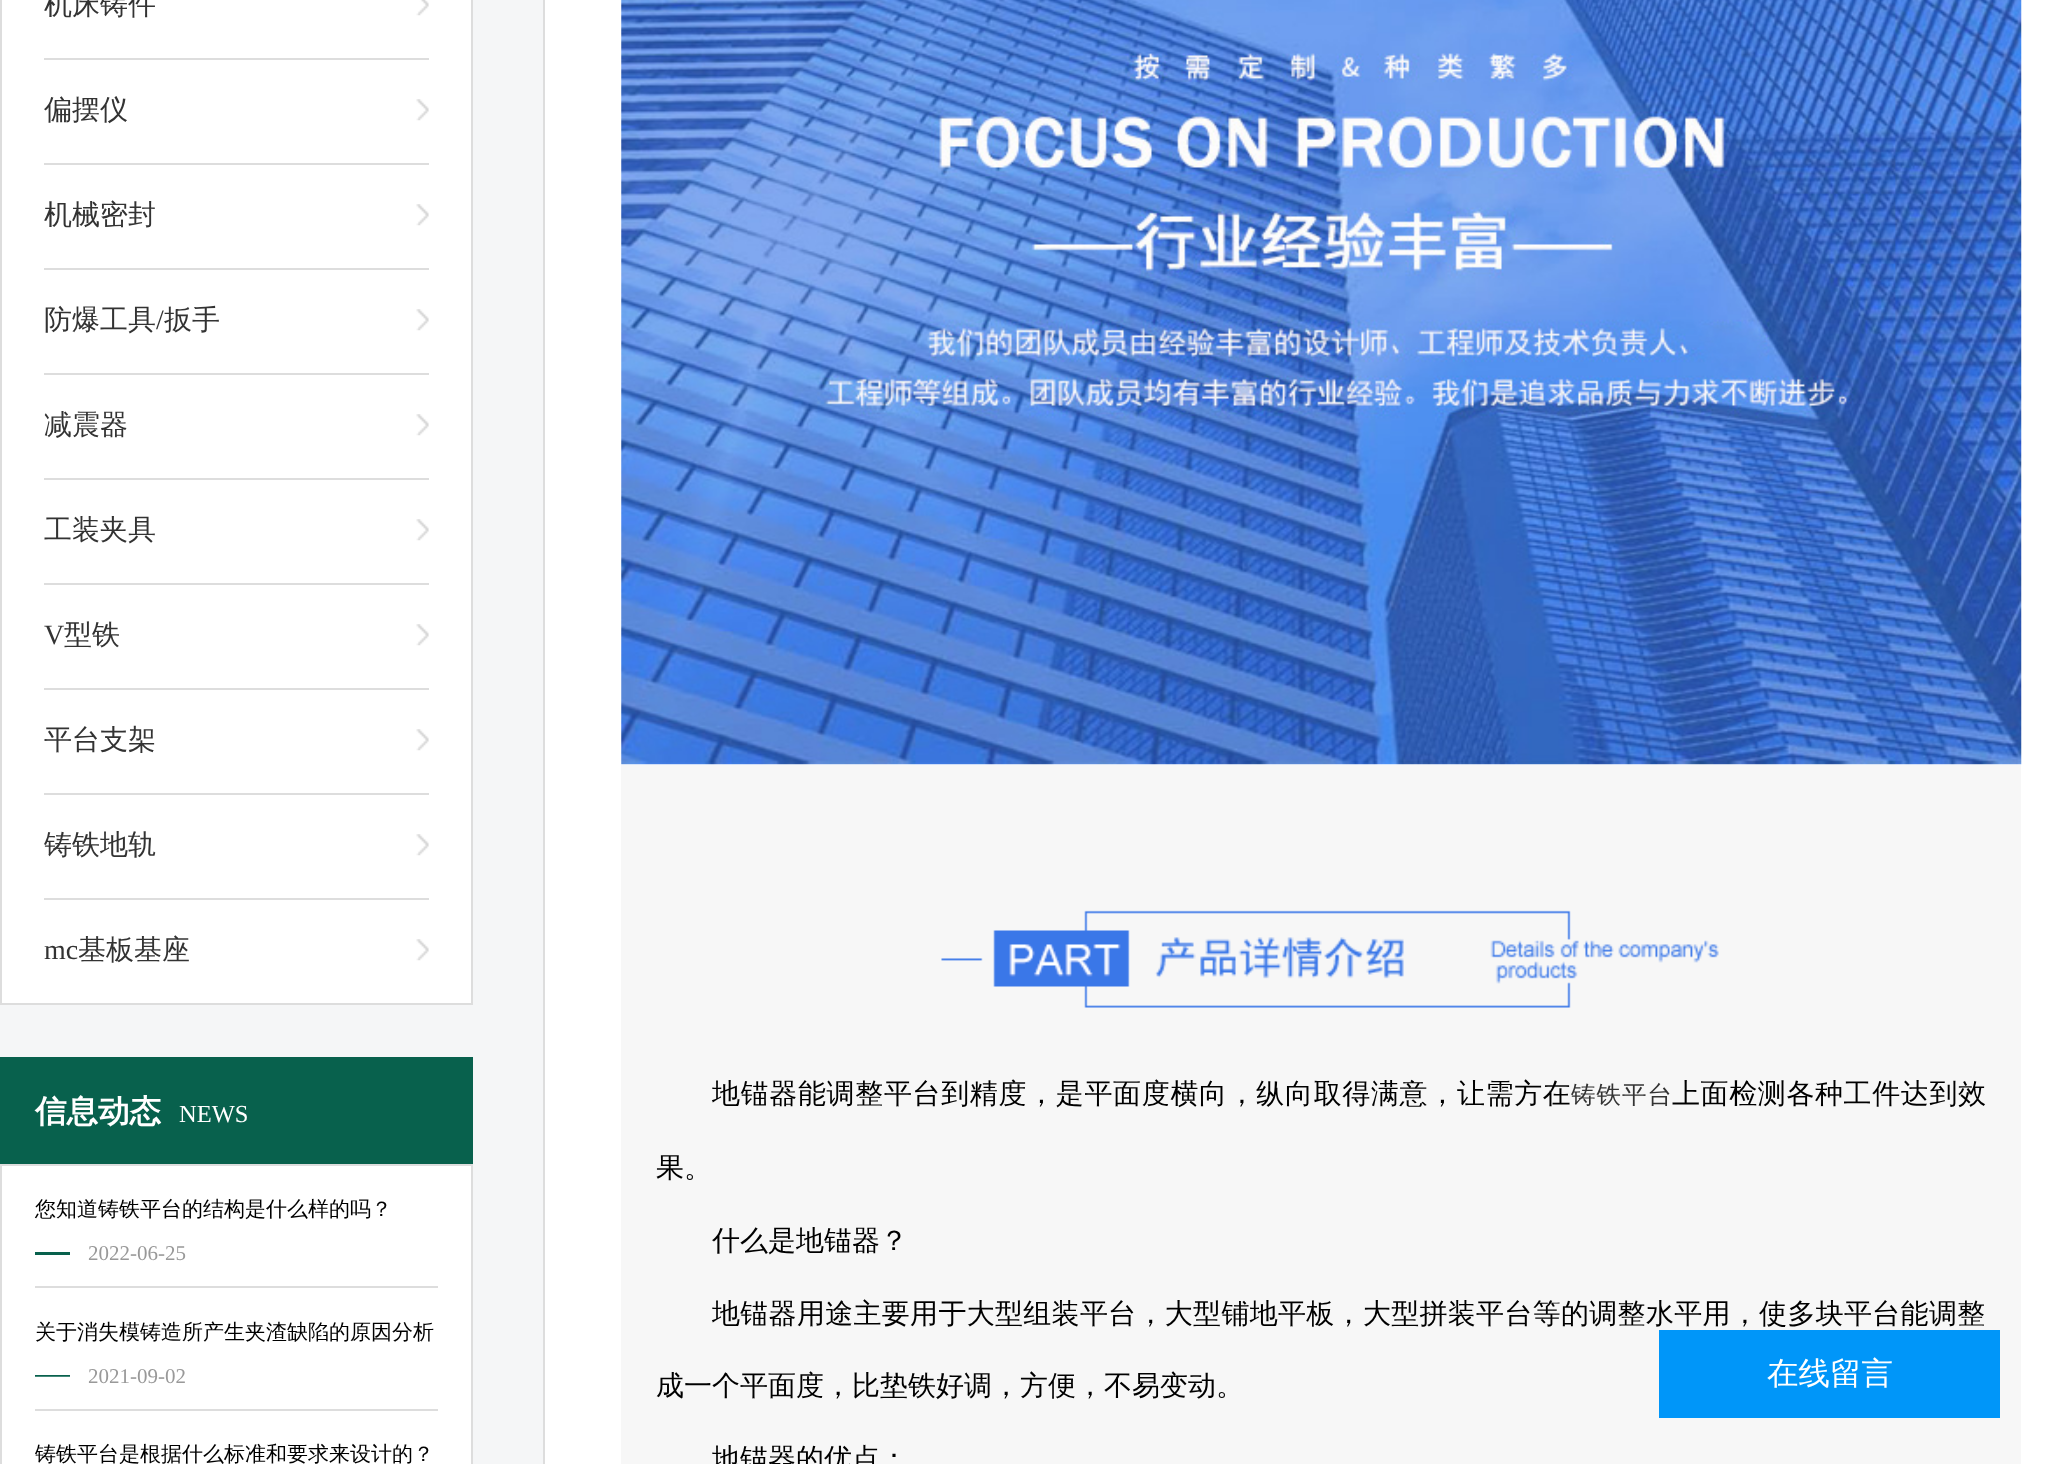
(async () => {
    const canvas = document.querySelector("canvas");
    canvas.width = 2069;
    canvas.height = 1464;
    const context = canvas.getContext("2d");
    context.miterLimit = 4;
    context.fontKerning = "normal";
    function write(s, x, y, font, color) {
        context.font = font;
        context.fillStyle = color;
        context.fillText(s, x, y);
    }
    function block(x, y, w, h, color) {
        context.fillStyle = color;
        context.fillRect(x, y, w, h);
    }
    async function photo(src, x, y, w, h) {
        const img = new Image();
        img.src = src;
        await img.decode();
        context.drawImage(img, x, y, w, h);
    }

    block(0, 0, 2069, 1464, "rgb(245, 246, 247)");
    block(2, 0, 469, 1003, "rgb(255, 255, 255)");
    block(471, 0, 2, 1005, "rgb(221, 221, 221)");
    block(0, 1003, 473, 2, "rgb(221, 221, 221)");
    block(0, 0, 2, 1005, "rgb(221, 221, 221)");
    await photo("media/1.png", 416, 0, 13, 16);
    block(44, 58, 385, 2, "rgb(221, 221, 221)");
    write("机床铸件", 44, 14, "500 28px WenQuanYi Zen Hei", "rgb(51, 51, 51)");
    await photo("media/2.png", 416, 99, 13, 22);
    block(44, 163, 385, 2, "rgb(221, 221, 221)");
    write("偏摆仪", 44, 119, "500 28px WenQuanYi Zen Hei", "rgb(51, 51, 51)");
    await photo("media/2.png", 416, 204, 13, 22);
    block(44, 268, 385, 2, "rgb(221, 221, 221)");
    write("机械密封", 44, 224, "500 28px WenQuanYi Zen Hei", "rgb(51, 51, 51)");
    await photo("media/2.png", 416, 309, 13, 22);
    block(44, 373, 385, 2, "rgb(221, 221, 221)");
    write("防爆工具", 44, 329, "500 28px WenQuanYi Zen Hei", "rgb(51, 51, 51)");
    write("/", 156, 329, "28px Liberation Serif", "rgb(51, 51, 51)");
    write("扳手", 164, 329, "500 28px WenQuanYi Zen Hei", "rgb(51, 51, 51)");
    await photo("media/2.png", 416, 414, 13, 22);
    block(44, 478, 385, 2, "rgb(221, 221, 221)");
    write("减震器", 44, 434, "500 28px WenQuanYi Zen Hei", "rgb(51, 51, 51)");
    await photo("media/2.png", 416, 519, 13, 22);
    block(44, 583, 385, 2, "rgb(221, 221, 221)");
    write("工装夹具", 44, 539, "500 28px WenQuanYi Zen Hei", "rgb(51, 51, 51)");
    await photo("media/2.png", 416, 624, 13, 22);
    block(44, 688, 385, 2, "rgb(221, 221, 221)");
    write("V", 44, 644, "28px Liberation Serif", "rgb(51, 51, 51)");
    write("型铁", 64, 644, "500 28px WenQuanYi Zen Hei", "rgb(51, 51, 51)");
    await photo("media/2.png", 416, 729, 13, 22);
    block(44, 793, 385, 2, "rgb(221, 221, 221)");
    write("平台支架", 44, 749, "500 28px WenQuanYi Zen Hei", "rgb(51, 51, 51)");
    await photo("media/2.png", 416, 834, 13, 22);
    block(44, 898, 385, 2, "rgb(221, 221, 221)");
    write("铸铁地轨", 44, 854, "500 28px WenQuanYi Zen Hei", "rgb(51, 51, 51)");
    await photo("media/2.png", 416, 939, 13, 22);
    write("mc", 44, 959, "28px Liberation Serif", "rgb(51, 51, 51)");
    write("基板基座", 78, 959, "500 28px WenQuanYi Zen Hei", "rgb(51, 51, 51)");
    block(0, 1057, 473, 107, "rgb(8, 97, 77)");
    write("信息动态", 35, 1122, "bold 31.5px WenQuanYi Zen Hei", "rgb(255, 255, 255)");
    write("NEWS", 179, 1122, "24.5px Liberation Serif", "rgb(255, 255, 255)");
    context.beginPath();
    context.rect(1, 1165, 471, 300);
    context.fill();
    context.strokeStyle = "rgb(221, 221, 221)";
    context.lineWidth = 2;
    context.stroke();
    block(35, 1286, 403, 2, "rgb(221, 221, 221)");
    write("您知道铸铁平台的结构是什么样的吗？", 35, 1216, "500 21px WenQuanYi Zen Hei", "rgb(0, 0, 0)");
    block(35, 1252, 35, 3, "rgb(8, 97, 77)");
    write("2022-06-25", 88, 1260, "21px Liberation Serif", "rgb(153, 153, 153)");
    block(35, 1409, 403, 2, "rgb(221, 221, 221)");
    write("关于消失模铸造所产生夹渣缺陷的原因分析", 35, 1339, "500 21px WenQuanYi Zen Hei", "rgb(0, 0, 0)");
    await photo("media/3.png", 35, 1375, 35, 2);
    write("2021-09-02", 88, 1383, "21px Liberation Serif", "rgb(153, 153, 153)");
    write("铸铁平台是根据什么标准和要求来设计的？", 35, 1461, "500 21px WenQuanYi Zen Hei", "rgb(0, 0, 0)");
    context.fillStyle = "rgb(255, 255, 255)";
    context.beginPath();
    context.rect(544, -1, 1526, 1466);
    context.fill();
    context.stroke();
    await photo("media/4.png", 621, 0, 1401, 765);
    block(621, 765, 1400, 699, "rgb(247, 247, 247)");
    await photo("media/5.png", 941, 910, 778, 98);
    context.letterSpacing = "0.65px";
    write("地锚器能调整平台到精度，是平面度横向，纵向取得满意，让需方在", 712, 1103, "500 28px WenQuanYi Zen Hei", "rgb(0, 0, 0)");
    context.letterSpacing = "1px";
    write("铸铁平台", 1571, 1103, "500 24.5px WenQuanYi Zen Hei", "rgb(51, 51, 51)");
    context.letterSpacing = "0.6px";
    write("上面检测各种工件达到效", 1672, 1103, "500 28px WenQuanYi Zen Hei", "rgb(0, 0, 0)");
    context.letterSpacing = "0px";
    write("果。", 656, 1177, "500 28px WenQuanYi Zen Hei", "rgb(0, 0, 0)");
    write("什么是地锚器？", 712, 1250, "500 28px WenQuanYi Zen Hei", "rgb(0, 0, 0)");
    context.letterSpacing = "0.3px";
    write("地锚器用途主要用于大型组装平台，大型铺地平板，大型拼装平台等的调整水平用，使多块平台能调整", 712, 1323, "500 28px WenQuanYi Zen Hei", "rgb(0, 0, 0)");
    context.letterSpacing = "0px";
    write("成一个平面度，比垫铁好调，方便，不易变动。", 656, 1395, "500 28px WenQuanYi Zen Hei", "rgb(0, 0, 0)");
    write("地锚器的优点：", 712, 1468, "500 28px WenQuanYi Zen Hei", "rgb(0, 0, 0)");
    block(1659, 1330, 341, 88, "rgb(0, 150, 249)");
    write("在线留言", 1767, 1384, "500 31.5px WenQuanYi Zen Hei", "rgb(255, 255, 255)");
})();
